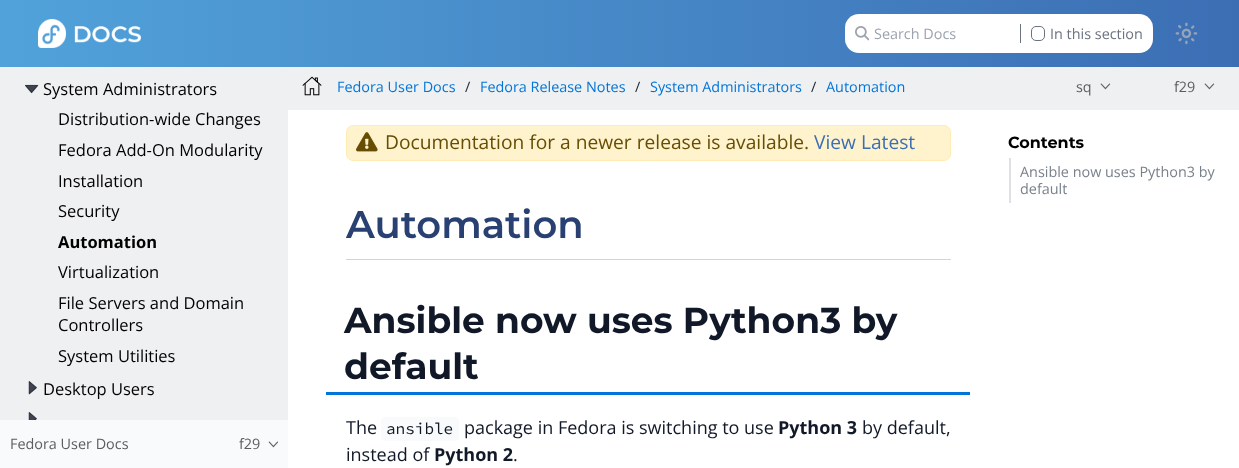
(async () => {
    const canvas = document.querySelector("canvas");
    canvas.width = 1239;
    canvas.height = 468;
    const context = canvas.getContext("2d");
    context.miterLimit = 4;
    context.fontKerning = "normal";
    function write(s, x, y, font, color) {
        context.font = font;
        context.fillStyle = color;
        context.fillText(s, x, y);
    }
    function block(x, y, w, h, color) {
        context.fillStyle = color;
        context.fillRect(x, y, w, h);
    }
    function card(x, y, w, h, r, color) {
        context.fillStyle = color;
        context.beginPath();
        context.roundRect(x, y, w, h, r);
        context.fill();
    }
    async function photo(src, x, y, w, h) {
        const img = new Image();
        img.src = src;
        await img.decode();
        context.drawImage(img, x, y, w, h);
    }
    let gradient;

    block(0, 0, 1239, 468, "rgb(255, 255, 255)");
    gradient = context.createLinearGradient(1239, 33, 0, 34);
    gradient.addColorStop(0, "rgb(60, 110, 180)");
    gradient.addColorStop(1, "rgb(81, 162, 218)");
    context.fillStyle = gradient;
    context.fillRect(0, 0, 1239, 67);
    await photo("media/1.png", 38, 19, 103, 29);
    card(845, 14, 308, 39, 14, "rgb(255, 255, 255)");
    await photo("media/2.png", 855, 26, 14, 15);
    write("Search Docs", 874, 39, "14.4px Open Sans", "rgb(156, 163, 175)");
    block(1020, 24, 1, 19, "rgb(107, 114, 128)");
    context.beginPath();
    context.roundRect(1031.5, 26.5, 13, 14, 4.5);
    context.strokeStyle = "rgb(107, 114, 128)";
    context.stroke();
    write("In this section", 1050, 39, "14.4px Open Sans", "rgb(107, 114, 128)");
    await photo("media/3.png", 1175, 22, 23, 23);
    block(0, 67, 288, 353, "rgb(239, 240, 241)");
    await photo("media/4.png", 25, 84, 14, 10);
    write("System Administrators", 43, 95, "16.5px Open Sans", "rgb(0, 0, 0)");
    write("Distribution-wide Changes", 58, 125, "16.5px Open Sans", "rgb(0, 0, 0)");
    write("Fedora Add-On Modularity", 58, 156, "16.5px Open Sans", "rgb(0, 0, 0)");
    write("Installation", 58, 187, "16.5px Open Sans", "rgb(0, 0, 0)");
    write("Security", 58, 217, "16.5px Open Sans", "rgb(0, 0, 0)");
    write("Automation", 58, 248, "bold 16.5px Open Sans", "rgb(0, 0, 0)");
    write("Virtualization", 58, 278, "16.5px Open Sans", "rgb(0, 0, 0)");
    write("File Servers and Domain", 58, 309, "16.5px Open Sans", "rgb(0, 0, 0)");
    write("Controllers", 58, 331, "16.5px Open Sans", "rgb(0, 0, 0)");
    write("System Utilities", 58, 362, "16.5px Open Sans", "rgb(0, 0, 0)");
    await photo("media/5.png", 28, 381, 9, 14);
    write("Desktop Users", 43, 395, "16.5px Open Sans", "rgb(0, 0, 0)");
    await photo("media/6.png", 28, 412, 9, 8);
    block(0, 420, 288, 48, "rgb(249, 250, 251)");
    write("Fedora User Docs", 10, 449, "14.4px Open Sans", "rgb(93, 93, 93)");
    write("f29", 239, 449, "14.4px Open Sans", "rgb(93, 93, 93)");
    await photo("media/7.png", 268, 441, 10, 7);
    block(288, 67, 951, 43, "rgb(239, 240, 241)");
    await photo("media/8.png", 302, 76, 20, 20);
    write("Fedora User Docs", 337, 92, "14.4px Open Sans", "rgb(2, 117, 216)");
    write("/", 465, 92, "14.4px Open Sans", "rgb(31, 41, 55)");
    write("Fedora Release Notes", 480, 92, "14.4px Open Sans", "rgb(2, 117, 216)");
    write("/", 635, 92, "14.4px Open Sans", "rgb(31, 41, 55)");
    write("System Administrators", 650, 92, "14.4px Open Sans", "rgb(2, 117, 216)");
    write("/", 811, 92, "14.4px Open Sans", "rgb(31, 41, 55)");
    write("Automation", 826, 92, "14.4px Open Sans", "rgb(2, 117, 216)");
    await photo("media/9.png", 1100, 83, 11, 7);
    write("sq", 1076, 92, "14.4px Open Sans", "rgb(93, 93, 93)");
    await photo("media/9.png", 1204, 83, 11, 7);
    write("f29", 1174, 92, "14.4px Open Sans", "rgb(93, 93, 93)");
    context.fillStyle = "rgb(255, 243, 205)";
    context.beginPath();
    context.roundRect(346.5, 125.5, 604, 35, 6.5);
    context.fill();
    context.strokeStyle = "rgb(255, 236, 181)";
    context.stroke();
    await photo("media/10.png", 356, 132, 22, 20);
    write("Documentation for a newer release is available.", 385, 149, "19.2px Open Sans", "rgb(102, 77, 3)");
    write("View Latest", 814, 149, "19.2px Open Sans", "rgb(60, 110, 180)");
    write("Automation", 346, 238, "600 38.5px Montserrat", "rgb(41, 65, 114)");
    block(346, 259, 605, 1, "rgb(209, 213, 219)");
    block(326, 392, 644, 3, "rgb(2, 117, 216)");
    write("Ansible now uses Python3 by", 344, 333, "bold 36px Montserrat", "rgb(17, 24, 39)");
    write("default", 344, 379, "bold 36px Montserrat", "rgb(17, 24, 39)");
    write("The", 346, 434, "18px Open Sans", "rgb(17, 24, 39)");
    card(381, 417, 78, 24, 4, "rgb(249, 250, 251)");
    write("ansible", 386, 434, "16px Source Code Pro", "rgb(17, 24, 39)");
    write("package in Fedora is switching to use", 464, 434, "18px Open Sans", "rgb(17, 24, 39)");
    write("Python 3", 778, 434, "bold 18px Open Sans", "rgb(17, 24, 39)");
    write("by default,", 862, 434, "18px Open Sans", "rgb(17, 24, 39)");
    write("instead of", 346, 461, "18px Open Sans", "rgb(17, 24, 39)");
    write("Python 2", 434, 461, "bold 18px Open Sans", "rgb(17, 24, 39)");
    write(".", 513, 461, "18px Open Sans", "rgb(17, 24, 39)");
    write("Contents", 1008, 148, "bold 16px Montserrat", "rgb(0, 0, 0)");
    block(1009, 158, 2, 45, "rgb(223, 224, 227)");
    write("Ansible now uses Python3 by", 1020, 177, "14.4px Open Sans", "rgb(121, 129, 139)");
    write("default", 1020, 194, "14.4px Open Sans", "rgb(121, 129, 139)");
})();
